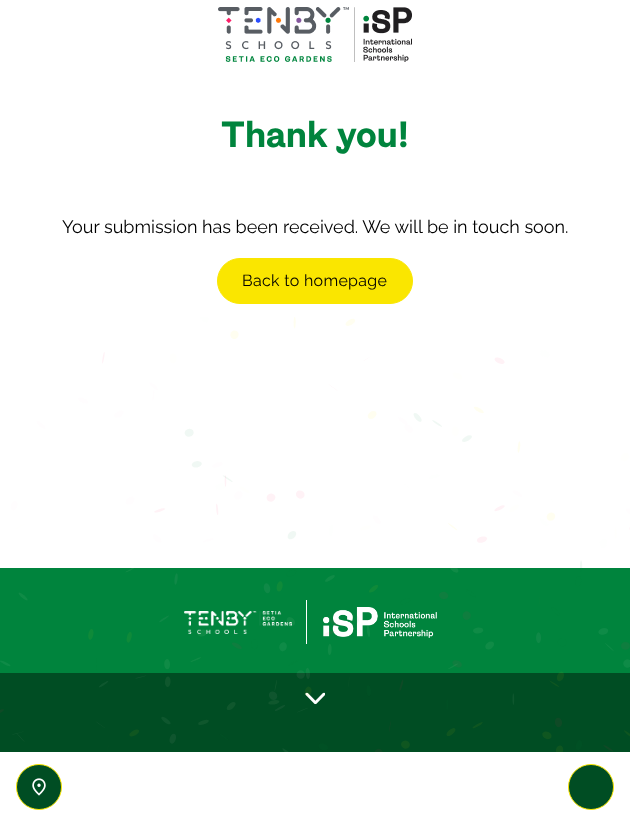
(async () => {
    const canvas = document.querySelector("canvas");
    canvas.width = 630;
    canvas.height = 834;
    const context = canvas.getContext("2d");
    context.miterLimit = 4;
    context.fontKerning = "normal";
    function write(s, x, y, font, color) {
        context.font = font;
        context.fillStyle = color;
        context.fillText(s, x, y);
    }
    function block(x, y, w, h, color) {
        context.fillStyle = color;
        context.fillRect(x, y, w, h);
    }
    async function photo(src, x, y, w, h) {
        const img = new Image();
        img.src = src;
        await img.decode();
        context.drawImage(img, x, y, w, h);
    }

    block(0, 0, 630, 834, "rgb(255, 255, 255)");
    await photo("media/1.png", 218, 7, 194, 55);
    context.fillStyle = "rgb(0, 77, 35)";
    context.beginPath();
    context.arc(39, 787, 22.5, 0, Math.PI * 2);
    context.fill();
    context.strokeStyle = "rgb(250, 230, 0)";
    context.stroke();
    await photo("media/2.png", 32, 778, 14, 18);
    context.beginPath();
    context.arc(591, 787, 22.5, 0, Math.PI * 2);
    context.fill();
    context.stroke();
    write("Thank you!", 221, 147, "bold 36px 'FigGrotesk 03'", "rgb(0, 132, 61)");
    write("Your submission has been received. We will be in touch soon.", 62, 233, "18px Raleway", "rgb(0, 0, 0)");
    context.fillStyle = "rgb(250, 230, 0)";
    context.beginPath();
    context.roundRect(217.5, 258.5, 195, 45, 22.5);
    context.fill();
    context.stroke();
    context.letterSpacing = "0.3px";
    write("Back to homepage", 242, 286, "16px Raleway", "rgb(0, 0, 0)");
    block(0, 568, 630, 105, "rgb(0, 132, 61)");
    await photo("media/3.png", 184, 611, 108, 23);
    block(306, 600, 1, 44, "rgb(255, 255, 255)");
    await photo("media/4.png", 323, 607, 114, 31);
    block(0, 673, 630, 79, "rgb(0, 77, 35)");
    await photo("media/5.png", 305, 692, 20, 13);
    await photo("media/6.png", 0, 317, 630, 435);
})();
